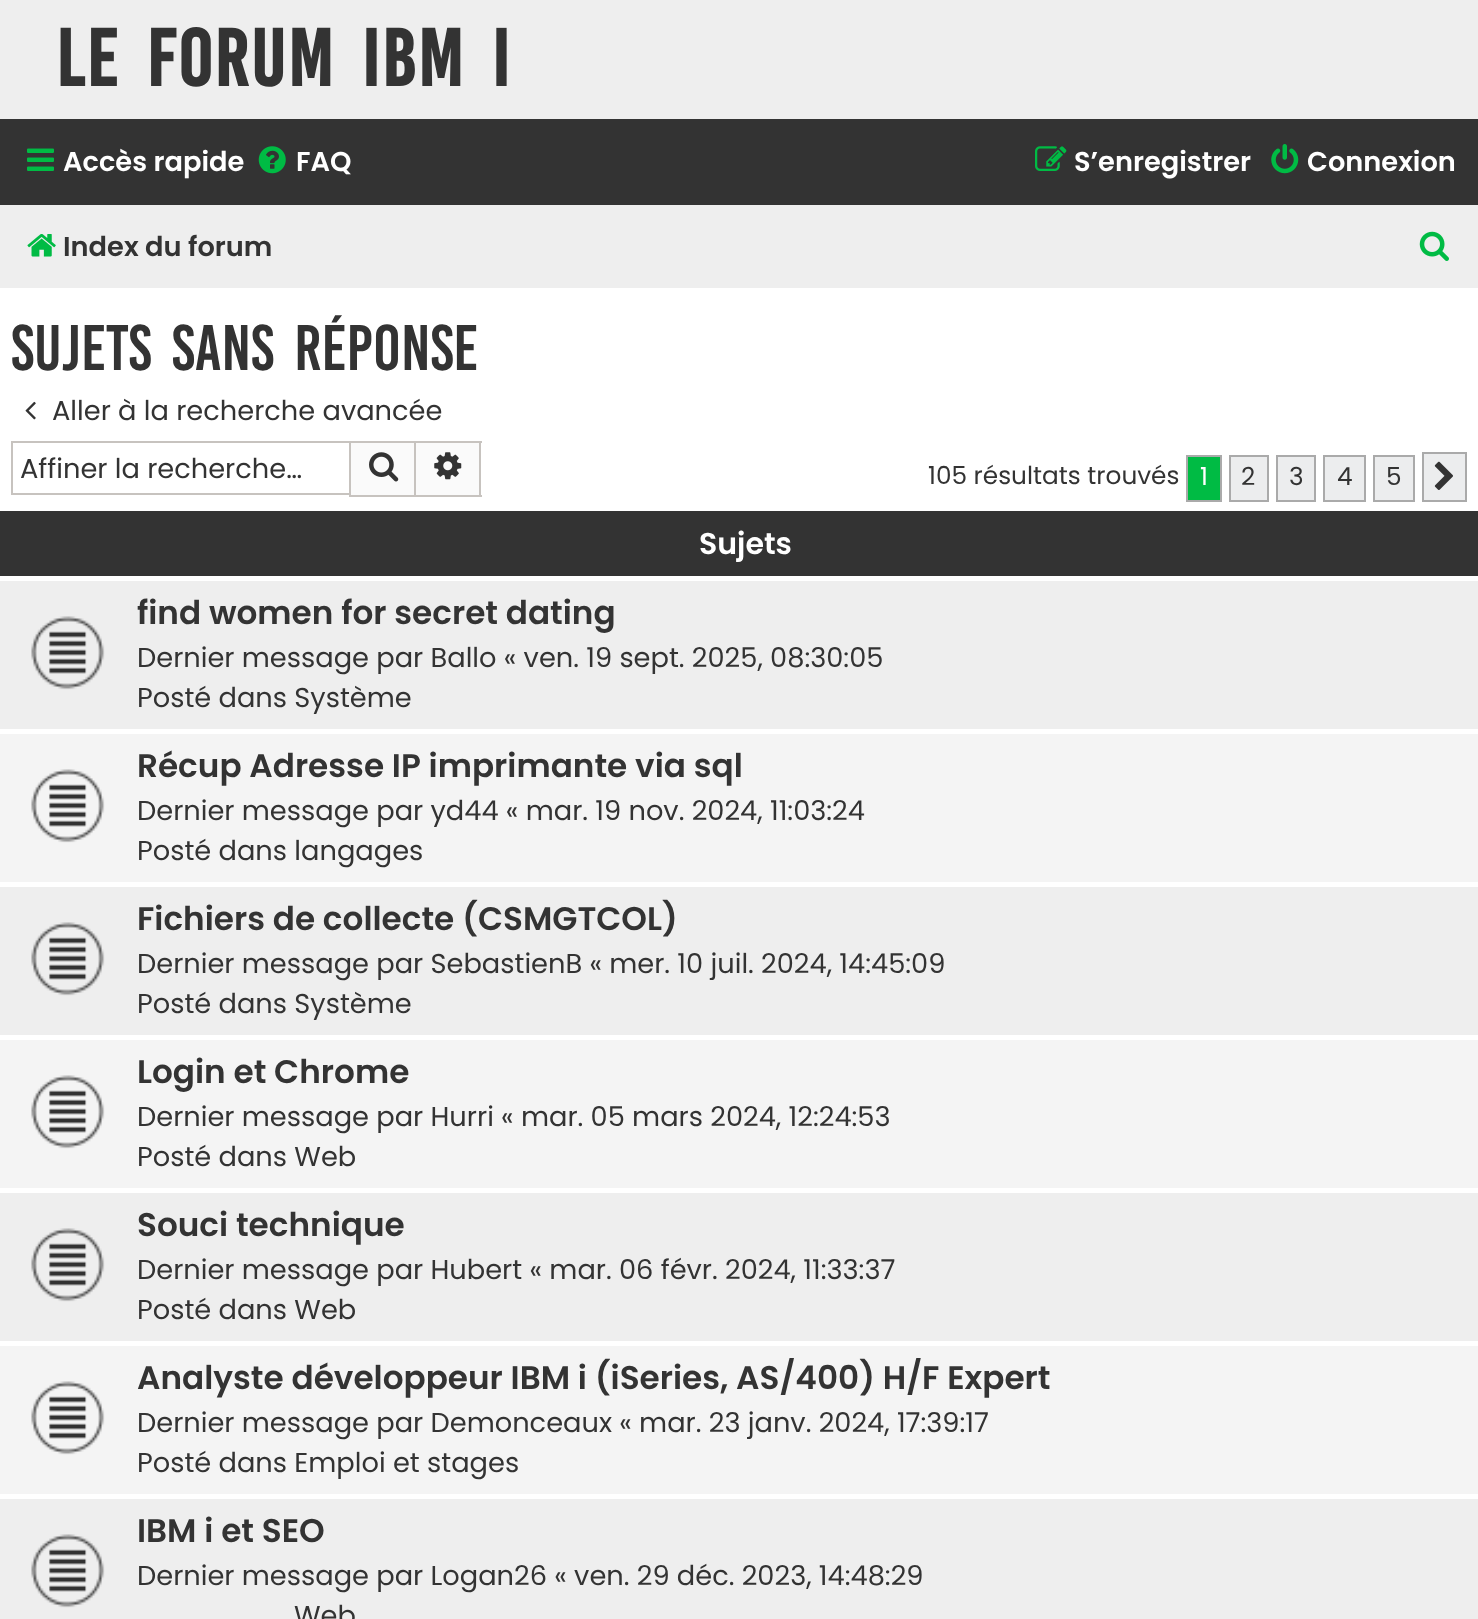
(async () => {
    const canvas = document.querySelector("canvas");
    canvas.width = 1478;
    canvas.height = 1619;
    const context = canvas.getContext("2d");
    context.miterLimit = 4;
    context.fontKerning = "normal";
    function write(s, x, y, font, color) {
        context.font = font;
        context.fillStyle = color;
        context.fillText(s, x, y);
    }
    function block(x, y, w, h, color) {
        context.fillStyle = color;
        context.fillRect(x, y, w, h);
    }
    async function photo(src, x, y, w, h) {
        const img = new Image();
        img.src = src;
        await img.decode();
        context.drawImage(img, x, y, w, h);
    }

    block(0, 0, 1478, 1619, "rgb(255, 255, 255)");
    block(0, 0, 1478, 119, "rgb(238, 238, 238)");
    context.letterSpacing = "2.25px";
    context.wordSpacing = "9px";
    write("le forum IBM i", 56, 86, "bold 62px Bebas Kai", "rgb(51, 51, 51)");
    block(0, 119, 1478, 86, "rgb(51, 51, 51)");
    await photo("media/1.png", 27, 148, 27, 23);
    context.letterSpacing = "0px";
    context.wordSpacing = "0px";
    write("Accès rapide", 63, 171, "600 27.25px Poppins", "rgb(255, 255, 255)");
    await photo("media/2.png", 258, 146, 28, 28);
    write("FAQ", 296, 171, "600 27.25px Poppins", "rgb(255, 255, 255)");
    await photo("media/3.png", 1035, 146, 32, 25);
    write("S’enregistrer", 1074, 171, "600 27.25px Poppins", "rgb(255, 255, 255)");
    await photo("media/4.png", 1271, 144, 28, 30);
    write("Connexion", 1307, 171, "600 27.25px Poppins", "rgb(255, 255, 255)");
    block(0, 205, 1478, 83, "rgb(238, 238, 238)");
    await photo("media/5.png", 27, 234, 29, 23);
    write("Index du forum", 63, 256, "600 27.25px Poppins", "rgb(51, 51, 51)");
    await photo("media/6.png", 1419, 231, 30, 30);
    context.wordSpacing = "9px";
    write("Sujets sans réponse", 11, 370, "49.5px Bebas Kai", "rgb(51, 51, 51)");
    await photo("media/7.png", 25, 401, 11, 19);
    context.wordSpacing = "0px";
    write("Aller à la recherche avancée", 52, 420, "27.25px Poppins", "rgb(51, 51, 51)");
    block(11, 441, 338, 2, "rgb(199, 195, 191)");
    block(11, 493, 338, 2, "rgb(199, 195, 191)");
    block(11, 441, 2, 54, "rgb(199, 195, 191)");
    write("Affiner la recherche…", 20, 478, "27.25px Poppins", "rgb(51, 51, 51)");
    context.fillStyle = "rgb(250, 250, 250)";
    context.beginPath();
    context.rect(350, 442, 65, 54);
    context.fill();
    context.strokeStyle = "rgb(199, 195, 191)";
    context.lineWidth = 2;
    context.stroke();
    await photo("media/8.png", 369, 452, 30, 30);
    block(416, 443, 63, 52, "rgb(250, 250, 250)");
    block(416, 441, 66, 2, "rgb(199, 195, 191)");
    block(479, 441, 2, 56, "rgb(199, 195, 191)");
    block(416, 495, 66, 2, "rgb(199, 195, 191)");
    await photo("media/9.png", 434, 452, 28, 28);
    write("105 résultats trouvés", 928, 484, "24.75px Poppins", "rgb(51, 51, 51)");
    context.fillStyle = "rgb(0, 187, 68)";
    context.beginPath();
    context.rect(1187, 456, 34, 45);
    context.fill();
    context.strokeStyle = "rgb(170, 170, 170)";
    context.stroke();
    write("1", 1200, 485, "24.75px Poppins", "rgb(255, 255, 255)");
    context.fillStyle = "rgb(236, 237, 238)";
    context.beginPath();
    context.rect(1230, 456, 38, 45);
    context.fill();
    context.stroke();
    write("2", 1241, 485, "24.75px Poppins", "rgb(51, 51, 51)");
    context.fillStyle = "rgb(236, 237, 238)";
    context.beginPath();
    context.rect(1277, 456, 38, 45);
    context.fill();
    context.stroke();
    write("3", 1289, 485, "24.75px Poppins", "rgb(51, 51, 51)");
    context.fillStyle = "rgb(236, 237, 238)";
    context.beginPath();
    context.rect(1324, 456, 41, 45);
    context.fill();
    context.stroke();
    write("4", 1337, 485, "24.75px Poppins", "rgb(51, 51, 51)");
    context.fillStyle = "rgb(236, 237, 238)";
    context.beginPath();
    context.rect(1374, 456, 40, 45);
    context.fill();
    context.stroke();
    write("5", 1386, 485, "24.75px Poppins", "rgb(51, 51, 51)");
    context.fillStyle = "rgb(236, 237, 238)";
    context.beginPath();
    context.rect(1423, 453, 43, 48);
    context.fill();
    context.stroke();
    await photo("media/10.png", 1434, 461, 19, 29);
    block(0, 511, 1478, 65, "rgb(51, 51, 51)");
    write("Sujets", 699, 554, "600 30px Poppins", "rgb(255, 255, 255)");
    block(0, 581, 1478, 148, "rgb(238, 238, 238)");
    await photo("media/11.png", 31, 616, 74, 74);
    write("find women for secret dating", 137, 624, "600 32.7px Poppins", "rgb(51, 51, 51)");
    write("Dernier message par Ballo « ven. 19 sept. 2025, 08:30:05", 137, 667, "27.25px Poppins", "rgb(51, 51, 51)");
    write("Posté dans Système", 137, 707, "27.25px Poppins", "rgb(51, 51, 51)");
    block(0, 734, 1478, 148, "rgb(244, 244, 244)");
    await photo("media/12.png", 31, 769, 74, 74);
    write("Récup Adresse IP imprimante via sql", 137, 777, "600 32.7px Poppins", "rgb(51, 51, 51)");
    write("Dernier message par yd44 « mar. 19 nov. 2024, 11:03:24", 137, 820, "27.25px Poppins", "rgb(51, 51, 51)");
    write("Posté dans langages", 137, 860, "27.25px Poppins", "rgb(51, 51, 51)");
    block(0, 887, 1478, 148, "rgb(238, 238, 238)");
    await photo("media/11.png", 31, 922, 74, 74);
    write("Fichiers de collecte (CSMGTCOL)", 137, 930, "600 32.7px Poppins", "rgb(51, 51, 51)");
    write("Dernier message par SebastienB « mer. 10 juil. 2024, 14:45:09", 137, 973, "27.25px Poppins", "rgb(51, 51, 51)");
    write("Posté dans Système", 137, 1013, "27.25px Poppins", "rgb(51, 51, 51)");
    block(0, 1040, 1478, 148, "rgb(244, 244, 244)");
    await photo("media/13.png", 31, 1075, 74, 74);
    write("Login et Chrome", 137, 1083, "600 32.7px Poppins", "rgb(51, 51, 51)");
    write("Dernier message par Hurri « mar. 05 mars 2024, 12:24:53", 137, 1126, "27.25px Poppins", "rgb(51, 51, 51)");
    write("Posté dans Web", 137, 1166, "27.25px Poppins", "rgb(51, 51, 51)");
    block(0, 1193, 1478, 148, "rgb(238, 238, 238)");
    await photo("media/11.png", 31, 1228, 74, 74);
    write("Souci technique", 137, 1236, "600 32.7px Poppins", "rgb(51, 51, 51)");
    write("Dernier message par Hubert « mar. 06 févr. 2024, 11:33:37", 137, 1279, "27.25px Poppins", "rgb(51, 51, 51)");
    write("Posté dans Web", 137, 1319, "27.25px Poppins", "rgb(51, 51, 51)");
    block(0, 1346, 1478, 148, "rgb(244, 244, 244)");
    await photo("media/13.png", 31, 1381, 74, 74);
    write("Analyste développeur IBM i (iSeries, AS/400) H/F Expert", 137, 1389, "600 32.7px Poppins", "rgb(51, 51, 51)");
    write("Dernier message par Demonceaux « mar. 23 janv. 2024, 17:39:17", 137, 1432, "27.25px Poppins", "rgb(51, 51, 51)");
    write("Posté dans Emploi et stages", 137, 1472, "27.25px Poppins", "rgb(51, 51, 51)");
    block(0, 1499, 1478, 120, "rgb(238, 238, 238)");
    await photo("media/11.png", 31, 1534, 74, 74);
    write("IBM i et SEO", 137, 1542, "600 32.7px Poppins", "rgb(51, 51, 51)");
    write("Dernier message par Logan26 « ven. 29 déc. 2023, 14:48:29", 137, 1585, "27.25px Poppins", "rgb(51, 51, 51)");
    write("Web", 294, 1625, "27.25px Poppins", "rgb(51, 51, 51)");
})();
